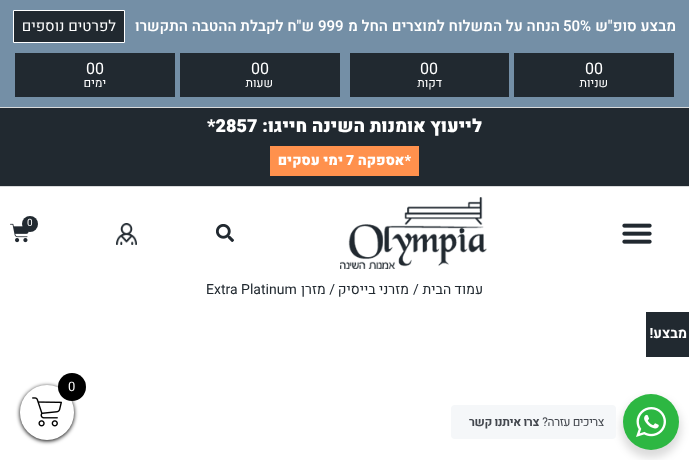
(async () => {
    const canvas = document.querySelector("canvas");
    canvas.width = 689;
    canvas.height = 460;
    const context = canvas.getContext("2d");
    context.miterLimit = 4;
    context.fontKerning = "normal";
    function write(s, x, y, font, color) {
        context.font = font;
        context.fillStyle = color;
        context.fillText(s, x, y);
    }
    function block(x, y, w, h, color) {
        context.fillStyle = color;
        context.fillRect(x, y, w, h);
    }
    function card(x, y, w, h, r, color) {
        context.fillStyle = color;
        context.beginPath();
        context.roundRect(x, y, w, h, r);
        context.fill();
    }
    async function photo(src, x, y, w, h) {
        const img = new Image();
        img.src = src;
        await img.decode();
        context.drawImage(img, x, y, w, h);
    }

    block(0, 0, 689, 460, "rgb(255, 255, 255)");
    block(0, 0, 689, 107, "rgb(116, 143, 166)");
    block(0, 107, 689, 1, "rgb(217, 218, 219)");
    context.direction = "rtl";
    write("מבצע סופ\"ש", 676, 31, "600 15px Heebo", "rgb(255, 255, 255)");
    context.direction = "ltr";
    write("50%", 563, 31, "600 15px Heebo", "rgb(255, 255, 255)");
    context.direction = "rtl";
    write("הנחה על המשלוח למוצרים החל מ", 560, 31, "600 15px Heebo", "rgb(255, 255, 255)");
    context.direction = "ltr";
    write("999", 318, 31, "600 15px Heebo", "rgb(255, 255, 255)");
    context.direction = "rtl";
    write("ש\"ח לקבלת ההטבה התקשרו", 314, 31, "600 15px Heebo", "rgb(255, 255, 255)");
    context.fillStyle = "rgb(33, 41, 48)";
    context.beginPath();
    context.rect(13.5, 10.5, 111, 32);
    context.fill();
    context.strokeStyle = "rgb(255, 255, 255)";
    context.stroke();
    write("לפרטים נוספים", 116, 31, "15px Heebo", "rgb(255, 255, 255)");
    block(514, 53, 160, 44, "rgb(33, 41, 48)");
    context.direction = "ltr";
    write("00", 585, 74, "16px Heebo", "rgb(255, 255, 255)");
    context.direction = "rtl";
    write("שניות", 608, 87, "12px Heebo", "rgb(255, 255, 255)");
    block(350, 53, 159, 44, "rgb(33, 41, 48)");
    context.direction = "ltr";
    write("00", 420, 74, "16px Heebo", "rgb(255, 255, 255)");
    context.direction = "rtl";
    write("דקות", 442, 87, "12px Heebo", "rgb(255, 255, 255)");
    block(180, 53, 160, 44, "rgb(33, 41, 48)");
    context.direction = "ltr";
    write("00", 251, 74, "16px Heebo", "rgb(255, 255, 255)");
    context.direction = "rtl";
    write("שעות", 273, 87, "12px Heebo", "rgb(255, 255, 255)");
    block(15, 53, 160, 44, "rgb(33, 41, 48)");
    context.direction = "ltr";
    write("00", 86, 74, "16px Heebo", "rgb(255, 255, 255)");
    context.direction = "rtl";
    write("ימים", 106, 87, "12px Heebo", "rgb(255, 255, 255)");
    block(0, 108, 689, 78, "rgb(33, 41, 48)");
    block(0, 186, 689, 1, "rgb(217, 218, 219)");
    write("לייעוץ אומנות השינה חייגו:", 482, 132, "900 18px Heebo", "rgb(255, 255, 255)");
    context.direction = "ltr";
    write("*2857", 207, 132, "900 18px Heebo", "rgb(255, 255, 255)");
    block(270, 146, 149, 30, "rgb(255, 145, 77)");
    context.direction = "rtl";
    write("*אספקה", 411, 165, "900 14px Heebo", "rgb(255, 255, 255)");
    context.direction = "ltr";
    write("7", 346, 165, "900 14px Heebo", "rgb(255, 255, 255)");
    context.direction = "rtl";
    write("ימי עסקים", 343, 165, "900 14px Heebo", "rgb(255, 255, 255)");
    await photo("media/1.png", 622, 223, 30, 21);
    await photo("media/2.png", 340, 197, 147, 72);
    await photo("media/3.png", 216, 224, 18, 18);
    await photo("media/4.png", 116, 223, 21, 22);
    await photo("media/5.png", 10, 223, 19, 20);
    context.fillStyle = "rgb(33, 41, 48)";
    context.beginPath();
    context.arc(30, 224, 8, 0, Math.PI * 2);
    context.fill();
    context.direction = "ltr";
    write("0", 27, 226, "10px Heebo", "rgb(255, 255, 255)");
    context.direction = "rtl";
    write("עמוד הבית", 483, 294, "14px Heebo", "rgb(33, 41, 48)");
    context.direction = "ltr";
    write("/", 413, 294, "14px Heebo", "rgb(33, 41, 48)");
    context.direction = "rtl";
    write("מזרני בייסיק", 409, 294, "14px Heebo", "rgb(33, 41, 48)");
    write("/ מזרן", 335, 294, "14px Heebo", "rgb(33, 41, 48)");
    context.direction = "ltr";
    write("Extra Platinum", 206, 294, "14px Heebo", "rgb(33, 41, 48)");
    block(646, 312, 43, 45, "rgb(33, 41, 48)");
    context.direction = "rtl";
    write("מבצע!", 687, 338, "bold 14px Heebo", "rgb(255, 255, 255)");
    context.fillStyle = "rgb(0, 0, 0)";
    context.filter = "blur(2px)";
    context.beginPath();
    context.roundRect(20, 386, 54, 55, 27);
    context.fill();
    context.filter = "none";
    card(20, 385, 54, 55, 27, "rgb(255, 255, 255)");
    context.fillStyle = "rgb(0, 0, 0)";
    context.beginPath();
    context.arc(72, 387, 14, 0, Math.PI * 2);
    context.fill();
    context.direction = "ltr";
    write("0", 68, 391, "13px Heebo", "rgb(255, 255, 255)");
    await photo("media/6.png", 32, 397, 30, 30);
    context.fillStyle = "rgba(0, 0, 0, 0.14)";
    context.filter = "blur(4px)";
    context.beginPath();
    context.roundRect(621, 398, 60, 60, 30);
    context.fill();
    context.filter = "none";
    context.fillStyle = "rgb(45, 183, 66)";
    context.beginPath();
    context.arc(651, 422, 28, 0, Math.PI * 2);
    context.fill();
    await photo("media/7.png", 636, 407, 30, 30);
    card(451, 405, 165, 34, 4, "rgb(245, 247, 249)");
    context.letterSpacing = "-0.4px";
    context.direction = "rtl";
    write("צריכים עזרה?", 604, 426, "12px Heebo", "rgb(67, 71, 78)");
    write("צרו איתנו קשר", 539, 426, "bold 12px Heebo", "rgb(67, 71, 78)");
})();
